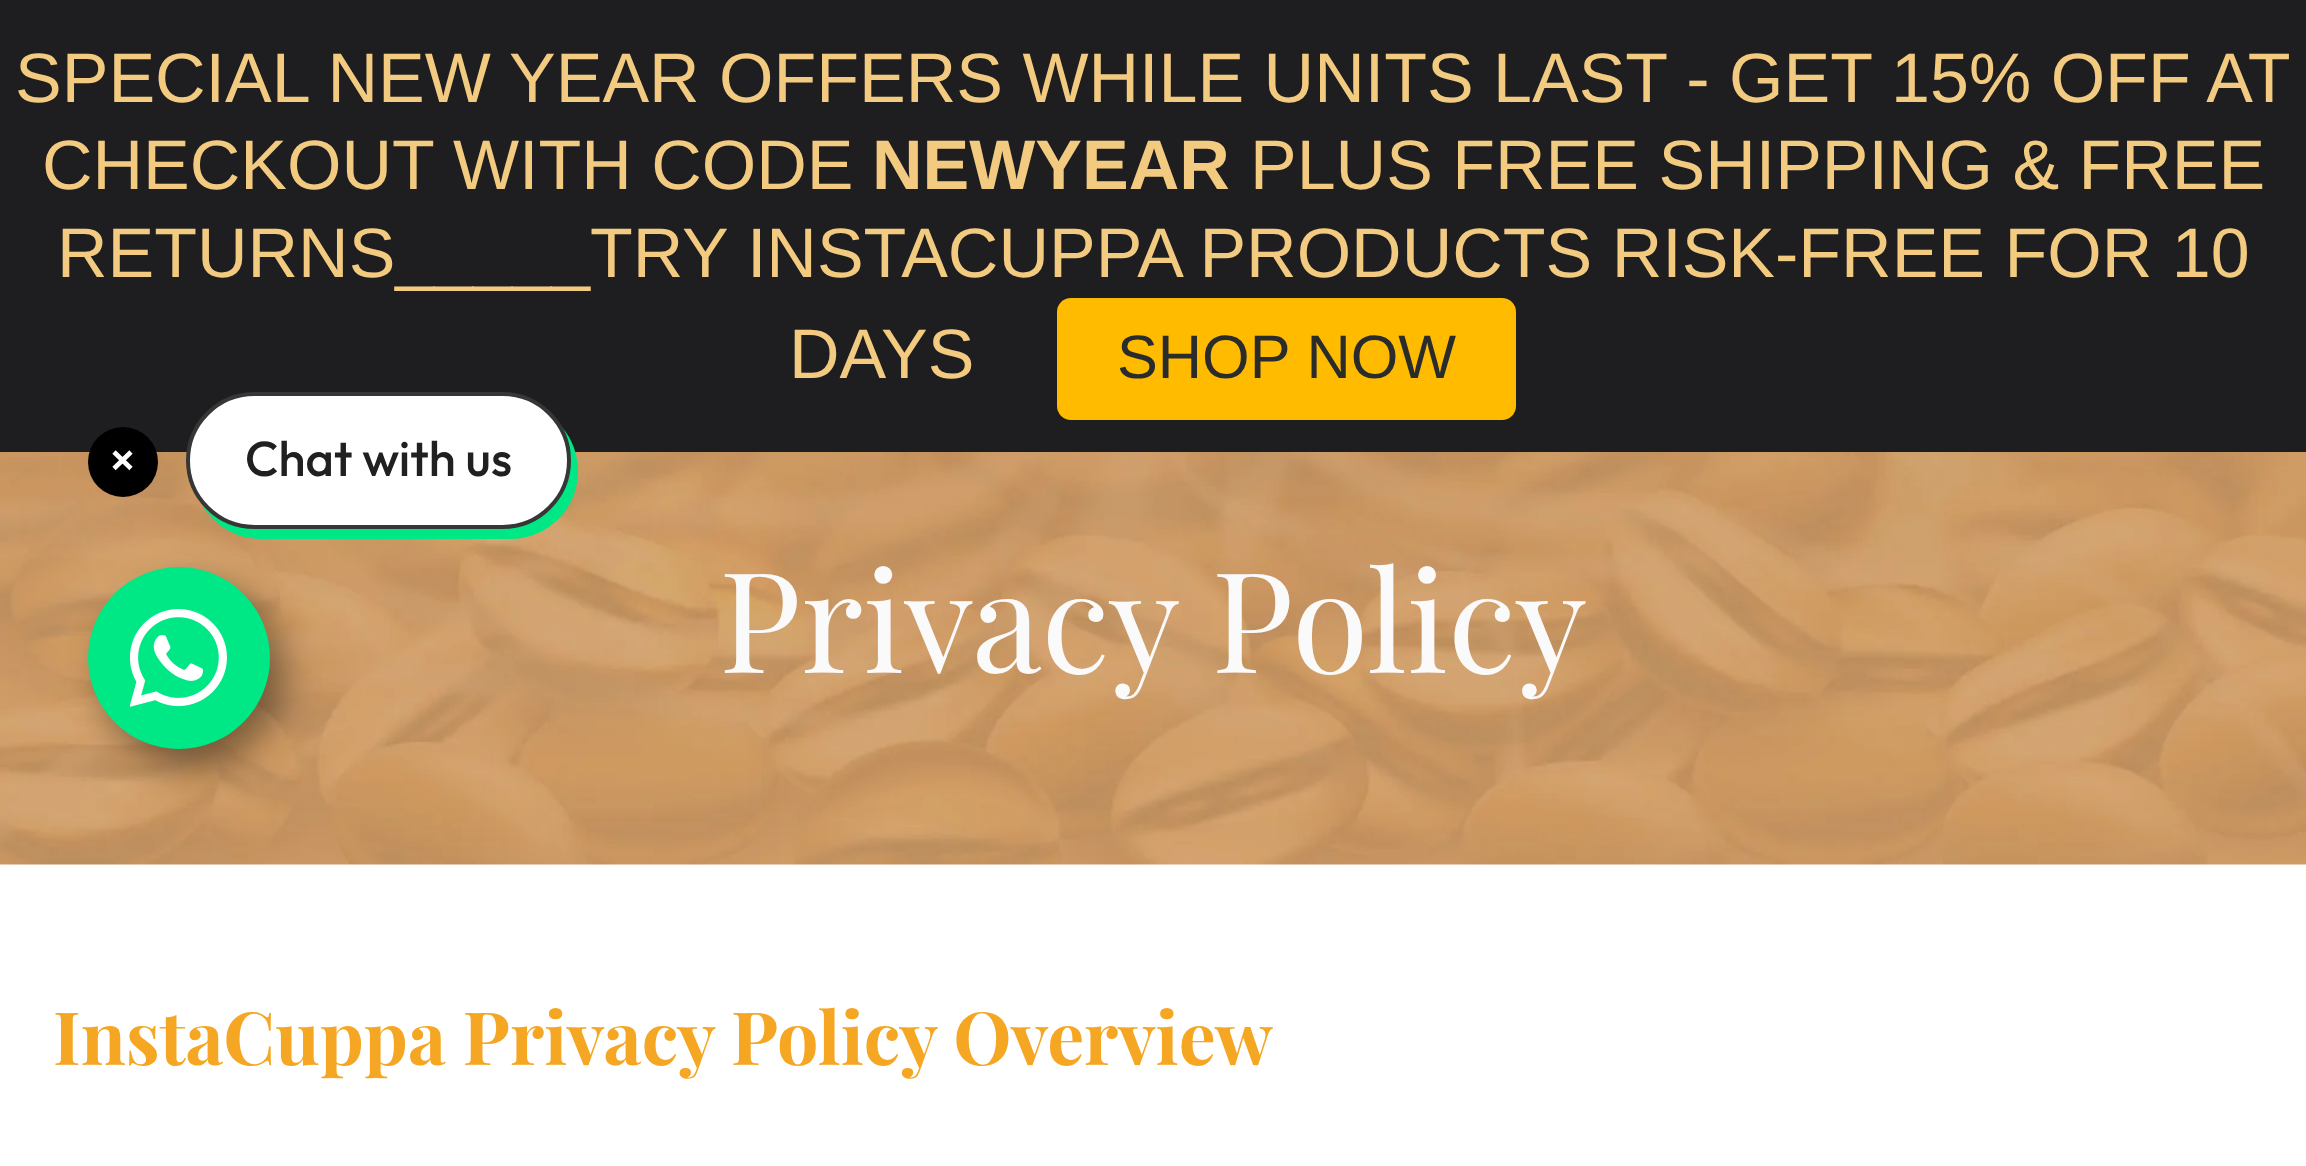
(async () => {
    const canvas = document.querySelector("canvas");
    canvas.width = 2306;
    canvas.height = 1166;
    const context = canvas.getContext("2d");
    context.miterLimit = 4;
    context.fontKerning = "normal";
    function write(s, x, y, font, color) {
        context.font = font;
        context.fillStyle = color;
        context.fillText(s, x, y);
    }
    function block(x, y, w, h, color) {
        context.fillStyle = color;
        context.fillRect(x, y, w, h);
    }
    function card(x, y, w, h, r, color) {
        context.fillStyle = color;
        context.beginPath();
        context.roundRect(x, y, w, h, r);
        context.fill();
    }
    async function photo(src, x, y, w, h) {
        const img = new Image();
        img.src = src;
        await img.decode();
        context.drawImage(img, x, y, w, h);
    }

    block(0, 0, 2306, 1166, "rgb(255, 255, 255)");
    block(0, 0, 2306, 452, "rgb(30, 30, 32)");
    write("SPECIAL NEW YEAR OFFERS WHILE UNITS LAST - GET 15% OFF AT", 15, 102, "70px Liberation Sans", "rgb(242, 202, 128)");
    write("CHECKOUT WITH CODE", 42, 189, "70px Liberation Sans", "rgb(242, 202, 128)");
    write("NEWYEAR", 872, 189, "bold 70px Liberation Sans", "rgb(242, 202, 128)");
    write("PLUS FREE SHIPPING & FREE", 1250, 189, "70px Liberation Sans", "rgb(242, 202, 128)");
    write("RETURNS_____TRY INSTACUPPA PRODUCTS RISK-FREE FOR 10", 57, 277, "70px Liberation Sans", "rgb(242, 202, 128)");
    write("DAYS", 789, 378, "70px Liberation Sans", "rgb(242, 202, 128)");
    card(1057, 298, 459, 122, 14, "rgb(255, 187, 0)");
    write("SHOP NOW", 1117, 378, "61.25px Liberation Sans", "rgb(42, 44, 43)");
    await photo("media/2.png", 0, 452, 2306, 413);
    context.fillStyle = "rgb(0, 0, 0)";
    context.beginPath();
    context.arc(123, 462, 35, 0, Math.PI * 2);
    context.fill();
    context.beginPath();
    context.moveTo(114, 452);
    context.lineTo(131, 468.5);
    context.moveTo(114, 468.5);
    context.lineTo(131, 452);
    context.strokeStyle = "rgb(255, 255, 255)";
    context.lineWidth = 4.7;
    context.stroke();
    context.fillStyle = "rgba(0, 0, 0, 0.4)";
    context.filter = "blur(17.5px)";
    context.beginPath();
    context.roundRect(102, 585, 182, 182, 91);
    context.fill();
    context.filter = "none";
    context.fillStyle = "rgb(0, 231, 133)";
    context.beginPath();
    context.moveTo(202, 505);
    context.bezierCurveTo(214, 525, 236, 539, 261, 539);
    context.lineTo(510, 539);
    context.bezierCurveTo(548, 539, 578, 509, 578, 471);
    context.bezierCurveTo(578, 454, 572, 439, 562, 427);
    context.bezierCurveTo(567, 437, 570, 448, 570, 460);
    context.bezierCurveTo(570, 498, 540, 528, 502, 528);
    context.lineTo(254, 528);
    context.bezierCurveTo(233, 528, 214, 519, 202, 505);
    context.closePath();
    context.fill();
    context.fillStyle = "rgb(255, 255, 255)";
    context.beginPath();
    context.roundRect(188, 394, 381, 133, 66.5);
    context.fill();
    context.strokeStyle = "rgb(54, 54, 54)";
    context.lineWidth = 4;
    context.stroke();
    write("Chat with us", 245, 476, "500 49px Outfit", "rgb(32, 32, 32)");
    context.fillStyle = "rgb(0, 231, 133)";
    context.beginPath();
    context.arc(179, 658, 91, 0, Math.PI * 2);
    context.fill();
    await photo("media/1.png", 130, 609, 97, 98);
    write("Privacy Policy", 719, 673, "140px Playfair Display", "rgb(250, 250, 250)");
    write("InstaCuppa Privacy Policy Overview", 53, 1065, "bold 73.5px Playfair Display", "rgb(245, 166, 35)");
})();
